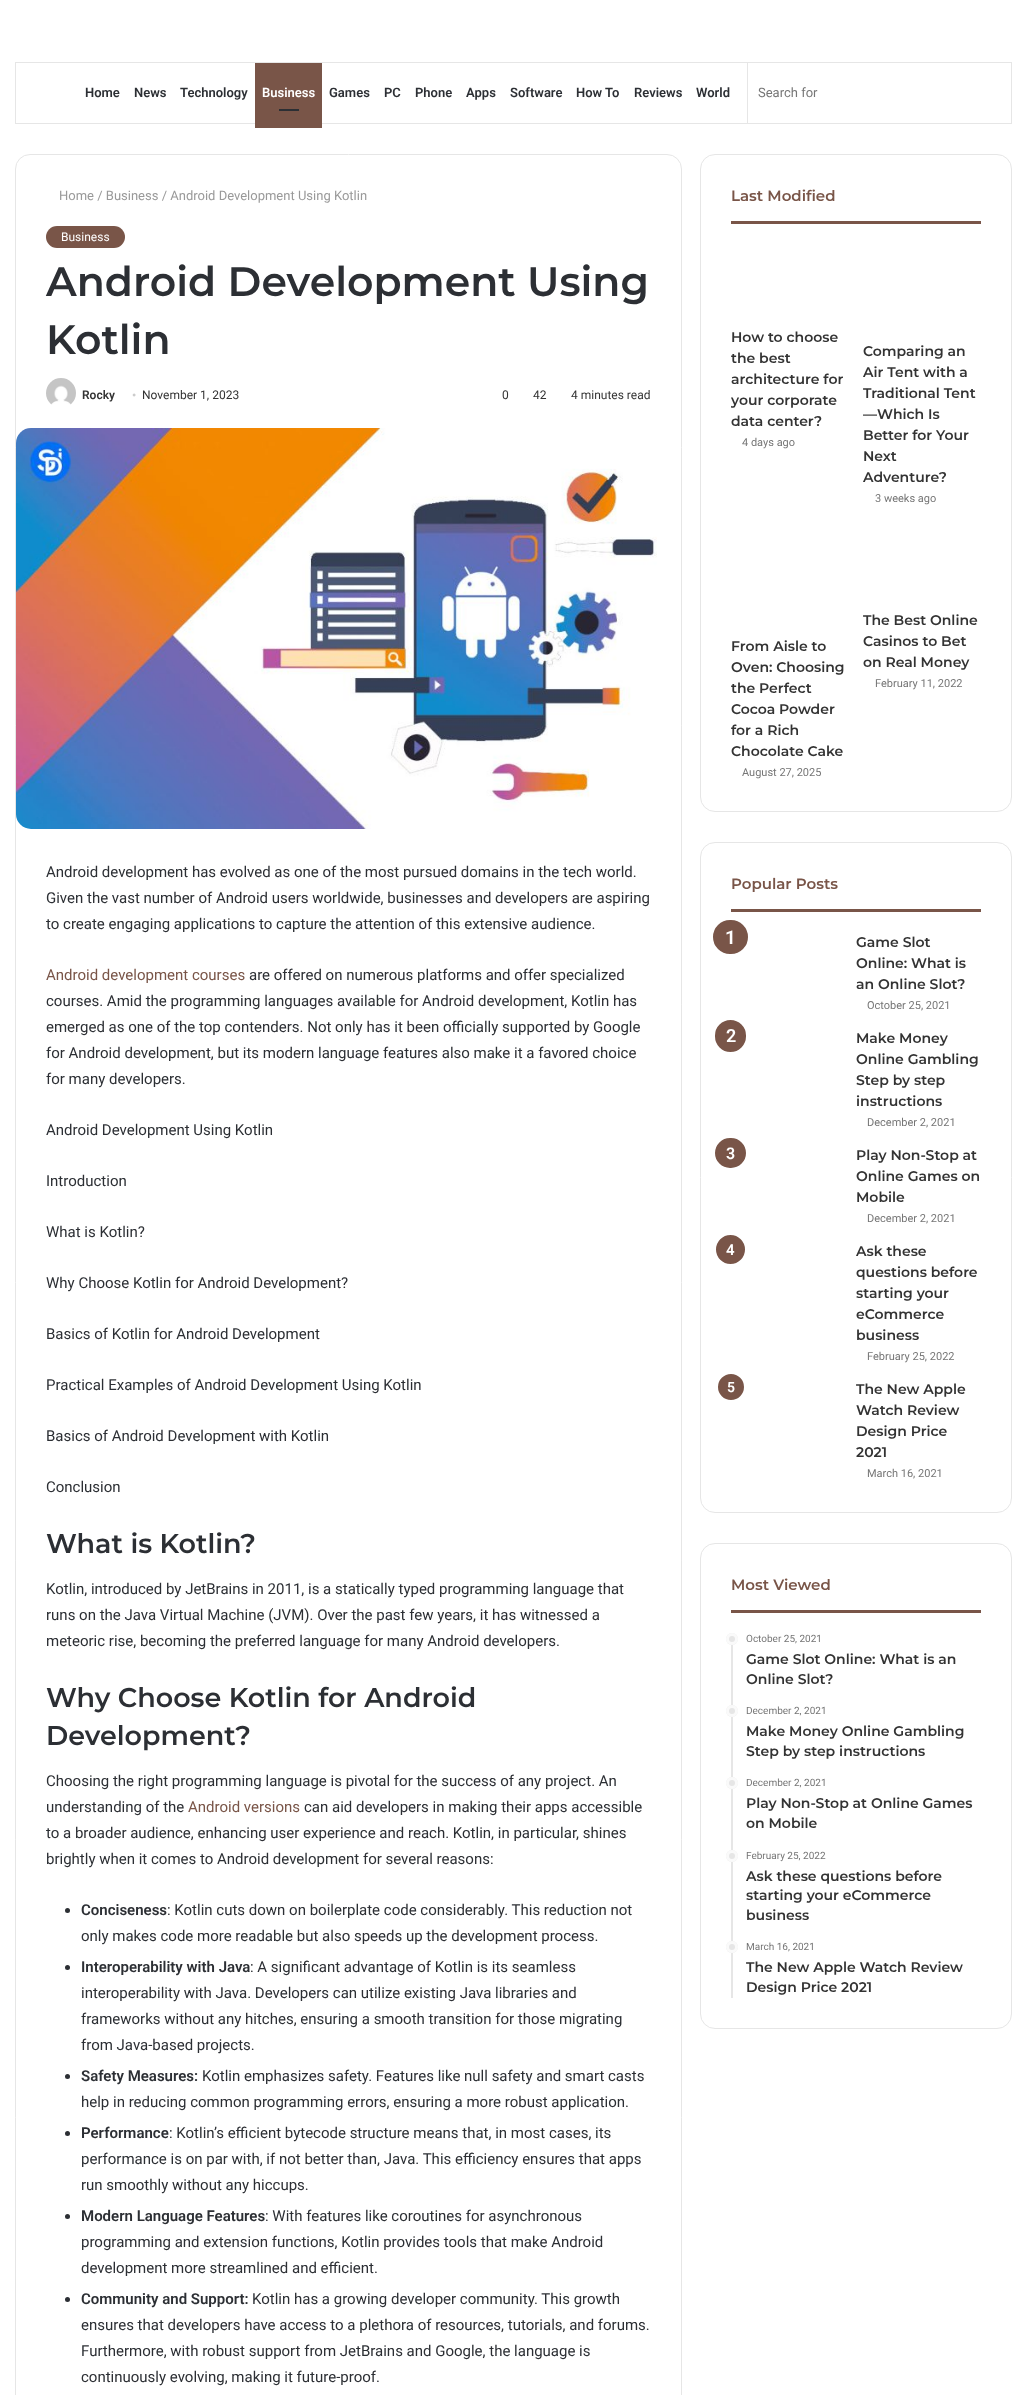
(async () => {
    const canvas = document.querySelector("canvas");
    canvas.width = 1027;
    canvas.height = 2395;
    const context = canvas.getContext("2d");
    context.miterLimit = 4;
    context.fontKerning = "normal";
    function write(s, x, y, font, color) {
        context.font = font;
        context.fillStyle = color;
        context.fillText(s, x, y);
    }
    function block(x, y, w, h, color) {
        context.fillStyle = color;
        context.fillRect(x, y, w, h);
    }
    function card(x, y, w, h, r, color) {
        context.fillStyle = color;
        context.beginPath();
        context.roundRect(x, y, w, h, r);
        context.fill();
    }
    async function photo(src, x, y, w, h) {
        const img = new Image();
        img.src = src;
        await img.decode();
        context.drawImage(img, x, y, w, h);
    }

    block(0, 0, 1027, 2395, "rgb(255, 255, 255)");
    context.strokeStyle = "rgb(230, 230, 230)";
    context.strokeRect(15.5, 62.5, 996, 61);
    write("Home", 85, 97, "600 13px Roboto", "rgb(44, 47, 52)");
    write("News", 134, 97, "600 13px Roboto", "rgb(44, 47, 52)");
    write("Technology", 180, 97, "600 13px Roboto", "rgb(44, 47, 52)");
    block(255, 63, 67, 65, "rgb(121, 85, 72)");
    write("Business", 262, 97, "600 13px Roboto", "rgb(255, 255, 255)");
    block(279, 109, 20, 2, "rgb(44, 47, 52)");
    write("Games", 329, 97, "600 13px Roboto", "rgb(44, 47, 52)");
    write("PC", 384, 97, "600 13px Roboto", "rgb(44, 47, 52)");
    write("Phone", 415, 97, "600 13px Roboto", "rgb(44, 47, 52)");
    write("Apps", 466, 97, "600 13px Roboto", "rgb(44, 47, 52)");
    write("Software", 510, 97, "600 13px Roboto", "rgb(44, 47, 52)");
    write("How To", 576, 97, "600 13px Roboto", "rgb(44, 47, 52)");
    write("Reviews", 634, 97, "600 13px Roboto", "rgb(44, 47, 52)");
    write("World", 696, 97, "600 13px Roboto", "rgb(44, 47, 52)");
    block(747, 63, 1, 60, "rgb(230, 230, 230)");
    write("Search for", 758, 97, "13px Roboto", "rgb(118, 118, 118)");
    context.beginPath();
    context.roundRect(15.5, 154.5, 666, 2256, 14.5);
    context.stroke();
    write("Home / Business / Android Development Using Kotlin", 59, 200, "13px Roboto", "rgb(153, 153, 153)");
    card(46, 226, 79, 22, 11, "rgb(121, 85, 72)");
    write("Business", 61, 241, "12px Roboto", "rgb(255, 255, 255)");
    write("Android Development Using", 46, 296, "600 41px Montserrat", "rgb(44, 47, 52)");
    write("Kotlin", 46, 354, "600 41px Montserrat", "rgb(44, 47, 52)");
    await photo("media/1.png", 46, 378, 30, 27);
    write("Rocky", 82, 399, "600 12px Roboto", "rgb(51, 51, 51)");
    write("•", 132, 399, "12px Liberation Serif", "rgb(204, 204, 204)");
    write("November 1, 2023", 142, 399, "12px Roboto", "rgb(51, 51, 51)");
    write("0", 502, 399, "12px Roboto", "rgb(51, 51, 51)");
    write("42", 533, 399, "12px Roboto", "rgb(51, 51, 51)");
    write("4 minutes read", 571, 399, "12px Roboto", "rgb(51, 51, 51)");
    await photo("media/2.png", 16, 428, 641, 401);
    write("Android development has evolved as one of the most pursued domains in the tech world.", 46, 877, "15px Roboto", "rgb(44, 47, 52)");
    write("Given the vast number of Android users worldwide, businesses and developers are aspiring", 46, 903, "15px Roboto", "rgb(44, 47, 52)");
    write("to create engaging applications to capture the attention of this extensive audience.", 46, 929, "15px Roboto", "rgb(44, 47, 52)");
    write("Android development courses", 46, 980, "15px Roboto", "rgb(121, 85, 72)");
    write("are offered on numerous platforms and offer specialized", 249, 980, "15px Roboto", "rgb(44, 47, 52)");
    write("courses. Amid the programming languages available for Android development, Kotlin has", 46, 1006, "15px Roboto", "rgb(44, 47, 52)");
    write("emerged as one of the top contenders. Not only has it been officially supported by Google", 46, 1032, "15px Roboto", "rgb(44, 47, 52)");
    write("for Android development, but its modern language features also make it a favored choice", 46, 1058, "15px Roboto", "rgb(44, 47, 52)");
    write("for many developers.", 46, 1084, "15px Roboto", "rgb(44, 47, 52)");
    write("Android Development Using Kotlin", 46, 1135, "15px Roboto", "rgb(44, 47, 52)");
    write("Introduction", 46, 1186, "15px Roboto", "rgb(44, 47, 52)");
    write("What is Kotlin?", 46, 1237, "15px Roboto", "rgb(44, 47, 52)");
    write("Why Choose Kotlin for Android Development?", 46, 1288, "15px Roboto", "rgb(44, 47, 52)");
    write("Basics of Kotlin for Android Development", 46, 1339, "15px Roboto", "rgb(44, 47, 52)");
    write("Practical Examples of Android Development Using Kotlin", 46, 1390, "15px Roboto", "rgb(44, 47, 52)");
    write("Basics of Android Development with Kotlin", 46, 1441, "15px Roboto", "rgb(44, 47, 52)");
    write("Conclusion", 46, 1492, "15px Roboto", "rgb(44, 47, 52)");
    write("What is Kotlin?", 46, 1553, "600 27px Montserrat", "rgb(44, 47, 52)");
    write("Kotlin, introduced by JetBrains in 2011, is a statically typed programming language that", 46, 1594, "15px Roboto", "rgb(44, 47, 52)");
    write("runs on the Java Virtual Machine (JVM). Over the past few years, it has witnessed a", 46, 1620, "15px Roboto", "rgb(44, 47, 52)");
    write("meteoric rise, becoming the preferred language for many Android developers.", 46, 1646, "15px Roboto", "rgb(44, 47, 52)");
    write("Why Choose Kotlin for Android", 46, 1707, "600 27px Montserrat", "rgb(44, 47, 52)");
    write("Development?", 46, 1745, "600 27px Montserrat", "rgb(44, 47, 52)");
    write("Choosing the right programming language is pivotal for the success of any project. An", 46, 1786, "15px Roboto", "rgb(44, 47, 52)");
    write("understanding of the", 46, 1812, "15px Roboto", "rgb(44, 47, 52)");
    write("Android versions", 188, 1812, "15px Roboto", "rgb(121, 85, 72)");
    write("can aid developers in making their apps accessible", 304, 1812, "15px Roboto", "rgb(44, 47, 52)");
    write("to a broader audience, enhancing user experience and reach. Kotlin, in particular, shines", 46, 1838, "15px Roboto", "rgb(44, 47, 52)");
    write("brightly when it comes to Android development for several reasons:", 46, 1864, "15px Roboto", "rgb(44, 47, 52)");
    context.beginPath();
    context.arc(67.5, 1910.5, 2.5, 0, Math.PI * 2);
    context.fill();
    write("Conciseness", 81, 1915, "600 15px Roboto", "rgb(44, 47, 52)");
    write(": Kotlin cuts down on boilerplate code considerably. This reduction not", 167, 1915, "15px Roboto", "rgb(44, 47, 52)");
    write("only makes code more readable but also speeds up the development process.", 81, 1941, "15px Roboto", "rgb(44, 47, 52)");
    context.beginPath();
    context.arc(67.5, 1967.5, 2.5, 0, Math.PI * 2);
    context.fill();
    write("Interoperability with Java", 81, 1972, "600 15px Roboto", "rgb(44, 47, 52)");
    write(": A significant advantage of Kotlin is its seamless", 250, 1972, "15px Roboto", "rgb(44, 47, 52)");
    write("interoperability with Java. Developers can utilize existing Java libraries and", 81, 1998, "15px Roboto", "rgb(44, 47, 52)");
    write("frameworks without any hitches, ensuring a smooth transition for those migrating", 81, 2024, "15px Roboto", "rgb(44, 47, 52)");
    write("from Java-based projects.", 81, 2050, "15px Roboto", "rgb(44, 47, 52)");
    context.beginPath();
    context.arc(67.5, 2076.5, 2.5, 0, Math.PI * 2);
    context.fill();
    write("Safety Measures:", 81, 2081, "600 15px Roboto", "rgb(44, 47, 52)");
    write("Kotlin emphasizes safety. Features like null safety and smart casts", 202, 2081, "15px Roboto", "rgb(44, 47, 52)");
    write("help in reducing common programming errors, ensuring a more robust application.", 81, 2107, "15px Roboto", "rgb(44, 47, 52)");
    context.beginPath();
    context.arc(67.5, 2133.5, 2.5, 0, Math.PI * 2);
    context.fill();
    write("Performance", 81, 2138, "600 15px Roboto", "rgb(44, 47, 52)");
    write(": Kotlin’s efficient bytecode structure means that, in most cases, its", 169, 2138, "15px Roboto", "rgb(44, 47, 52)");
    write("performance is on par with, if not better than, Java. This efficiency ensures that apps", 81, 2164, "15px Roboto", "rgb(44, 47, 52)");
    write("run smoothly without any hiccups.", 81, 2190, "15px Roboto", "rgb(44, 47, 52)");
    context.beginPath();
    context.arc(67.5, 2216.5, 2.5, 0, Math.PI * 2);
    context.fill();
    write("Modern Language Features", 81, 2221, "600 15px Roboto", "rgb(44, 47, 52)");
    write(": With features like coroutines for asynchronous", 265, 2221, "15px Roboto", "rgb(44, 47, 52)");
    write("programming and extension functions, Kotlin provides tools that make Android", 81, 2247, "15px Roboto", "rgb(44, 47, 52)");
    write("development more streamlined and efficient.", 81, 2273, "15px Roboto", "rgb(44, 47, 52)");
    context.beginPath();
    context.arc(67.5, 2299.5, 2.5, 0, Math.PI * 2);
    context.fill();
    write("Community and Support:", 81, 2304, "600 15px Roboto", "rgb(44, 47, 52)");
    write("Kotlin has a growing developer community. This growth", 252, 2304, "15px Roboto", "rgb(44, 47, 52)");
    write("ensures that developers have access to a plethora of resources, tutorials, and forums.", 81, 2330, "15px Roboto", "rgb(44, 47, 52)");
    write("Furthermore, with robust support from JetBrains and Google, the language is", 81, 2356, "15px Roboto", "rgb(44, 47, 52)");
    write("continuously evolving, making it future-proof.", 81, 2382, "15px Roboto", "rgb(44, 47, 52)");
    context.beginPath();
    context.roundRect(700.5, 154.5, 311, 657, 14.5);
    context.stroke();
    block(731, 221, 250, 3, "rgb(121, 85, 72)");
    write("Last Modified", 731, 201, "600 15px Montserrat", "rgb(121, 85, 72)");
    write("How to choose", 731, 342, "600 14px Montserrat", "rgb(51, 51, 51)");
    write("the best", 731, 363, "600 14px Montserrat", "rgb(51, 51, 51)");
    write("architecture for", 731, 384, "600 14px Montserrat", "rgb(51, 51, 51)");
    context.save();
    context.beginPath();
    context.rect(731, 244, 250, 557);
    context.clip();
    write("your corporate", 731, 405, "600 14px Montserrat", "rgb(51, 51, 51)");
    context.restore();
    write("data center?", 731, 426, "600 14px Montserrat", "rgb(51, 51, 51)");
    write("4 days ago", 742, 446, "11px Roboto", "rgb(118, 118, 118)");
    write("Comparing an", 863, 356, "600 14px Montserrat", "rgb(51, 51, 51)");
    write("Air Tent with a", 863, 377, "600 14px Montserrat", "rgb(51, 51, 51)");
    write("Traditional Tent", 863, 398, "600 14px Montserrat", "rgb(51, 51, 51)");
    write("—Which Is", 863, 419, "600 14px Montserrat", "rgb(51, 51, 51)");
    write("Better for Your", 863, 440, "600 14px Montserrat", "rgb(51, 51, 51)");
    write("Next", 863, 461, "600 14px Montserrat", "rgb(51, 51, 51)");
    write("Adventure?", 863, 482, "600 14px Montserrat", "rgb(51, 51, 51)");
    write("3 weeks ago", 875, 502, "11px Roboto", "rgb(118, 118, 118)");
    write("From Aisle to", 731, 651, "600 14px Montserrat", "rgb(51, 51, 51)");
    write("Oven: Choosing", 731, 672, "600 14px Montserrat", "rgb(51, 51, 51)");
    write("the Perfect", 731, 693, "600 14px Montserrat", "rgb(51, 51, 51)");
    write("Cocoa Powder", 731, 714, "600 14px Montserrat", "rgb(51, 51, 51)");
    write("for a Rich", 731, 735, "600 14px Montserrat", "rgb(51, 51, 51)");
    write("Chocolate Cake", 731, 756, "600 14px Montserrat", "rgb(51, 51, 51)");
    write("August 27, 2025", 742, 776, "11px Roboto", "rgb(118, 118, 118)");
    write("The Best Online", 863, 625, "600 14px Montserrat", "rgb(51, 51, 51)");
    write("Casinos to Bet", 863, 646, "600 14px Montserrat", "rgb(51, 51, 51)");
    write("on Real Money", 863, 667, "600 14px Montserrat", "rgb(51, 51, 51)");
    write("February 11, 2022", 875, 687, "11px Roboto", "rgb(118, 118, 118)");
    context.beginPath();
    context.roundRect(700.5, 842.5, 311, 670, 14.5);
    context.stroke();
    block(731, 909, 250, 3, "rgb(121, 85, 72)");
    write("Popular Posts", 731, 889, "600 15px Montserrat", "rgb(121, 85, 72)");
    context.beginPath();
    context.roundRect(711.5, 918.5, 38, 37, 18.5);
    context.fill();
    context.strokeStyle = "rgb(255, 255, 255)";
    context.lineWidth = 3;
    context.stroke();
    write("1", 725, 944, "600 19px Roboto", "rgb(255, 255, 255)");
    write("Game Slot", 856, 947, "600 14px Montserrat", "rgb(51, 51, 51)");
    write("Online: What is", 856, 968, "600 14px Montserrat", "rgb(51, 51, 51)");
    write("an Online Slot?", 856, 989, "600 14px Montserrat", "rgb(51, 51, 51)");
    write("October 25, 2021", 867, 1009, "11px Roboto", "rgb(118, 118, 118)");
    context.fillStyle = "rgb(121, 85, 72)";
    context.beginPath();
    context.roundRect(713.5, 1018.5, 34, 35, 17);
    context.fill();
    context.stroke();
    write("2", 726, 1042, "600 18px Roboto", "rgb(255, 255, 255)");
    write("Make Money", 856, 1043, "600 14px Montserrat", "rgb(51, 51, 51)");
    write("Online Gambling", 856, 1064, "600 14px Montserrat", "rgb(51, 51, 51)");
    write("Step by step", 856, 1085, "600 14px Montserrat", "rgb(51, 51, 51)");
    write("instructions", 856, 1106, "600 14px Montserrat", "rgb(51, 51, 51)");
    write("December 2, 2021", 867, 1126, "11px Roboto", "rgb(118, 118, 118)");
    context.fillStyle = "rgb(121, 85, 72)";
    context.beginPath();
    context.roundRect(714, 1137, 33, 32, 16);
    context.fill();
    context.lineWidth = 2;
    context.stroke();
    write("3", 726, 1159, "600 16px Roboto", "rgb(255, 255, 255)");
    write("Play Non-Stop at", 856, 1160, "600 14px Montserrat", "rgb(51, 51, 51)");
    write("Online Games on", 856, 1181, "600 14px Montserrat", "rgb(51, 51, 51)");
    write("Mobile", 856, 1202, "600 14px Montserrat", "rgb(51, 51, 51)");
    write("December 2, 2021", 867, 1222, "11px Roboto", "rgb(118, 118, 118)");
    context.fillStyle = "rgb(121, 85, 72)";
    context.beginPath();
    context.arc(730.5, 1249.5, 15.5, 0, Math.PI * 2);
    context.fill();
    context.stroke();
    write("4", 726, 1255, "600 15px Roboto", "rgb(255, 255, 255)");
    write("Ask these", 856, 1256, "600 14px Montserrat", "rgb(51, 51, 51)");
    write("questions before", 856, 1277, "600 14px Montserrat", "rgb(51, 51, 51)");
    write("starting your", 856, 1298, "600 14px Montserrat", "rgb(51, 51, 51)");
    write("eCommerce", 856, 1319, "600 14px Montserrat", "rgb(51, 51, 51)");
    write("business", 856, 1340, "600 14px Montserrat", "rgb(51, 51, 51)");
    write("February 25, 2022", 867, 1360, "11px Roboto", "rgb(118, 118, 118)");
    context.fillStyle = "rgb(121, 85, 72)";
    context.beginPath();
    context.arc(731, 1387, 14, 0, Math.PI * 2);
    context.fill();
    context.stroke();
    write("5", 727, 1392, "600 14px Roboto", "rgb(255, 255, 255)");
    write("The New Apple", 856, 1394, "600 14px Montserrat", "rgb(51, 51, 51)");
    write("Watch Review", 856, 1415, "600 14px Montserrat", "rgb(51, 51, 51)");
    write("Design Price", 856, 1436, "600 14px Montserrat", "rgb(51, 51, 51)");
    write("2021", 856, 1457, "600 14px Montserrat", "rgb(51, 51, 51)");
    write("March 16, 2021", 867, 1477, "11px Roboto", "rgb(118, 118, 118)");
    context.beginPath();
    context.roundRect(700.5, 1543.5, 311, 485, 14.5);
    context.strokeStyle = "rgb(230, 230, 230)";
    context.lineWidth = 1;
    context.stroke();
    block(731, 1610, 250, 3, "rgb(121, 85, 72)");
    write("Most Viewed", 731, 1590, "600 15px Montserrat", "rgb(121, 85, 72)");
    block(731, 1633, 2, 365, "rgb(230, 230, 230)");
    context.beginPath();
    context.arc(732, 1639, 6, 0, Math.PI * 2);
    context.fill();
    context.beginPath();
    context.arc(732, 1639, 4.5, 0, Math.PI * 2);
    context.strokeStyle = "rgba(255, 255, 255, 0.8)";
    context.lineWidth = 3;
    context.stroke();
    write("October 25, 2021", 746, 1642, "10px Roboto", "rgb(118, 118, 118)");
    write("Game Slot Online: What is an", 746, 1664, "600 14px Montserrat", "rgb(51, 51, 51)");
    write("Online Slot?", 746, 1684, "600 14px Montserrat", "rgb(51, 51, 51)");
    context.fillStyle = "rgb(230, 230, 230)";
    context.beginPath();
    context.arc(732, 1711, 6, 0, Math.PI * 2);
    context.fill();
    context.beginPath();
    context.arc(732, 1711, 4.5, 0, Math.PI * 2);
    context.stroke();
    write("December 2, 2021", 746, 1714, "10px Roboto", "rgb(118, 118, 118)");
    write("Make Money Online Gambling", 746, 1736, "600 14px Montserrat", "rgb(51, 51, 51)");
    write("Step by step instructions", 746, 1756, "600 14px Montserrat", "rgb(51, 51, 51)");
    context.fillStyle = "rgb(230, 230, 230)";
    context.beginPath();
    context.arc(732, 1783, 6, 0, Math.PI * 2);
    context.fill();
    context.beginPath();
    context.arc(732, 1783, 4.5, 0, Math.PI * 2);
    context.stroke();
    write("December 2, 2021", 746, 1786, "10px Roboto", "rgb(118, 118, 118)");
    write("Play Non-Stop at Online Games", 746, 1808, "600 14px Montserrat", "rgb(51, 51, 51)");
    write("on Mobile", 746, 1828, "600 14px Montserrat", "rgb(51, 51, 51)");
    context.fillStyle = "rgb(230, 230, 230)";
    context.beginPath();
    context.arc(732, 1856, 6, 0, Math.PI * 2);
    context.fill();
    context.beginPath();
    context.arc(732, 1856, 4.5, 0, Math.PI * 2);
    context.stroke();
    write("February 25, 2022", 746, 1859, "10px Roboto", "rgb(118, 118, 118)");
    write("Ask these questions before", 746, 1881, "600 14px Montserrat", "rgb(51, 51, 51)");
    write("starting your eCommerce", 746, 1900, "600 14px Montserrat", "rgb(51, 51, 51)");
    write("business", 746, 1920, "600 14px Montserrat", "rgb(51, 51, 51)");
    context.fillStyle = "rgb(230, 230, 230)";
    context.beginPath();
    context.arc(732, 1947, 6, 0, Math.PI * 2);
    context.fill();
    context.beginPath();
    context.arc(732, 1947, 4.5, 0, Math.PI * 2);
    context.stroke();
    write("March 16, 2021", 746, 1950, "10px Roboto", "rgb(118, 118, 118)");
    write("The New Apple Watch Review", 746, 1972, "600 14px Montserrat", "rgb(51, 51, 51)");
    write("Design Price 2021", 746, 1992, "600 14px Montserrat", "rgb(51, 51, 51)");
})();
